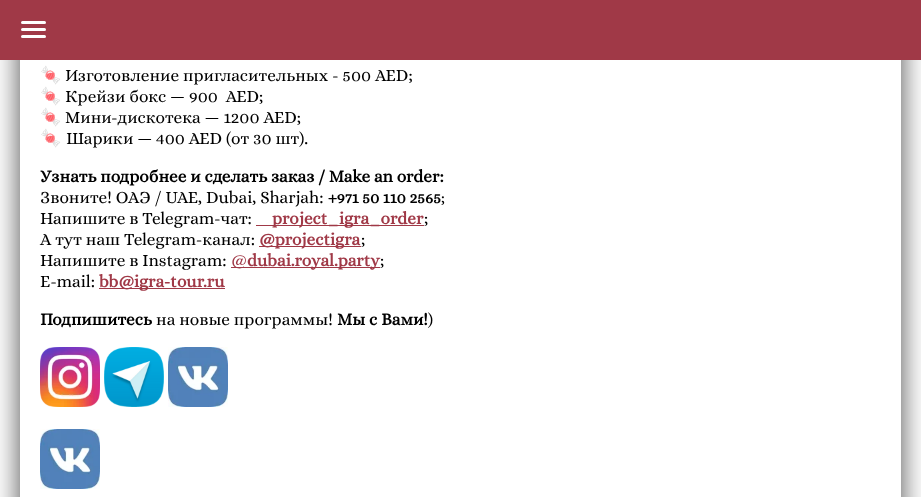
(async () => {
    const canvas = document.querySelector("canvas");
    canvas.width = 921;
    canvas.height = 497;
    const context = canvas.getContext("2d");
    context.miterLimit = 4;
    context.fontKerning = "normal";
    function write(s, x, y, font, color) {
        context.font = font;
        context.fillStyle = color;
        context.fillText(s, x, y);
    }
    function block(x, y, w, h, color) {
        context.fillStyle = color;
        context.fillRect(x, y, w, h);
    }
    function card(x, y, w, h, r, color) {
        context.fillStyle = color;
        context.beginPath();
        context.roundRect(x, y, w, h, r);
        context.fill();
    }
    async function photo(src, x, y, w, h) {
        const img = new Image();
        img.src = src;
        await img.decode();
        context.drawImage(img, x, y, w, h);
    }

    block(0, 0, 921, 497, "rgb(255, 255, 255)");
    context.filter = "blur(14.5px)";
    context.beginPath();
    context.rect(0, 10, 921, 60);
    context.fill();
    context.filter = "none";
    context.save();
    context.beginPath();
    context.moveTo(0, 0);
    context.lineTo(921, 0);
    context.lineTo(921, 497);
    context.lineTo(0, 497);
    context.closePath();
    context.moveTo(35, -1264);
    context.lineTo(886, -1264);
    context.bezierCurveTo(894.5, -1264, 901, -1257.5, 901, -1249);
    context.lineTo(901, 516);
    context.bezierCurveTo(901, 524.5, 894.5, 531, 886, 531);
    context.lineTo(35, 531);
    context.bezierCurveTo(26.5, 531, 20, 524.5, 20, 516);
    context.lineTo(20, -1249);
    context.bezierCurveTo(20, -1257.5, 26.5, -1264, 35, -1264);
    context.closePath();
    context.clip("evenodd");
    context.fillStyle = "rgb(74, 74, 74)";
    context.filter = "blur(14.5px)";
    context.beginPath();
    context.roundRect(20, -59, 881, 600, 15);
    context.fill();
    context.filter = "none";
    context.restore();
    block(0, 0, 921, 60, "rgb(160, 57, 71)");
    card(21, 21, 25, 3, 1.5, "rgb(255, 255, 255)");
    card(21, 28, 25, 3, 1.5, "rgb(255, 255, 255)");
    card(21, 35, 25, 3, 1.5, "rgb(255, 255, 255)");
    write("🍬", 40, 81, "17.3px Noto Color Emoji", "rgb(0, 0, 0)");
    write("Изготовление пригласительных - 500 AED;", 65, 81, "17.3px Alice", "rgb(0, 0, 0)");
    write("🍬", 40, 102, "17.3px Noto Color Emoji", "rgb(0, 0, 0)");
    write("Крейзи бокс — 900  AED;", 65, 102, "17.3px Alice", "rgb(0, 0, 0)");
    write("🍬", 40, 123, "17.3px Noto Color Emoji", "rgb(0, 0, 0)");
    write("Мини-дискотека — 1200 AED;", 65, 123, "17.3px Alice", "rgb(0, 0, 0)");
    write("🍬", 40, 144, "17.3px Noto Color Emoji", "rgb(0, 0, 0)");
    write("Шарики — 400 AED (от 30 шт).", 66, 144, "17.3px Alice", "rgb(0, 0, 0)");
    write("Узнать подробнее и сделать заказ / Make an order:", 40, 182, "bold 17.3px Alice", "rgb(0, 0, 0)");
    write("Звоните! ОАЭ / UAE, Dubai, Sharjah:", 40, 203, "17.3px Alice", "rgb(0, 0, 0)");
    write("+971 50 110 2565", 328, 203, "bold 16px Alice", "rgb(0, 0, 0)");
    write(";", 441, 203, "16px Alice", "rgb(0, 0, 0)");
    write("Напишите в Telegram-чат:", 40, 224, "17.3px Alice", "rgb(0, 0, 0)");
    block(256, 225, 168, 1, "rgb(160, 57, 71)");
    write("project_igra_order", 272, 224, "bold 17.3px Alice", "rgb(160, 57, 71)");
    write(";", 424, 224, "17.3px Alice", "rgb(0, 0, 0)");
    write("А тут наш Telegram-канал:", 40, 245, "17.3px Alice", "rgb(0, 0, 0)");
    block(259, 246, 102, 1, "rgb(160, 57, 71)");
    write("@projectigra", 259, 245, "bold 17.3px Alice", "rgb(160, 57, 71)");
    write(";", 361, 245, "17.3px Alice", "rgb(0, 0, 0)");
    write("Напишите в Instagram:", 40, 266, "17.3px Alice", "rgb(0, 0, 0)");
    block(231, 267, 149, 1, "rgb(160, 57, 71)");
    write("@", 231, 266, "17.3px Alice", "rgb(160, 57, 71)");
    write("dubai.royal.party", 247, 266, "bold 17.3px Alice", "rgb(160, 57, 71)");
    write(";", 380, 266, "17.3px Alice", "rgb(0, 0, 0)");
    write("E-mail:", 40, 287, "17.3px Alice", "rgb(0, 0, 0)");
    block(99, 288, 126, 1, "rgb(160, 57, 71)");
    write("bb@igra-tour.ru", 99, 287, "bold 17.3px Alice", "rgb(160, 57, 71)");
    write("Подпишитесь", 40, 325, "bold 17.3px Alice", "rgb(0, 0, 0)");
    write("на новые программы!", 156, 325, "17.3px Alice", "rgb(0, 0, 0)");
    write("Мы с Вами!", 337, 325, "bold 17.3px Alice", "rgb(0, 0, 0)");
    write(")", 428, 325, "17.3px Alice", "rgb(0, 0, 0)");
    await photo("media/1.png", 40, 347, 60, 60);
    await photo("media/2.png", 104, 347, 60, 60);
    await photo("media/3.png", 168, 347, 60, 60);
    await photo("media/3.png", 40, 429, 60, 60);
})();
